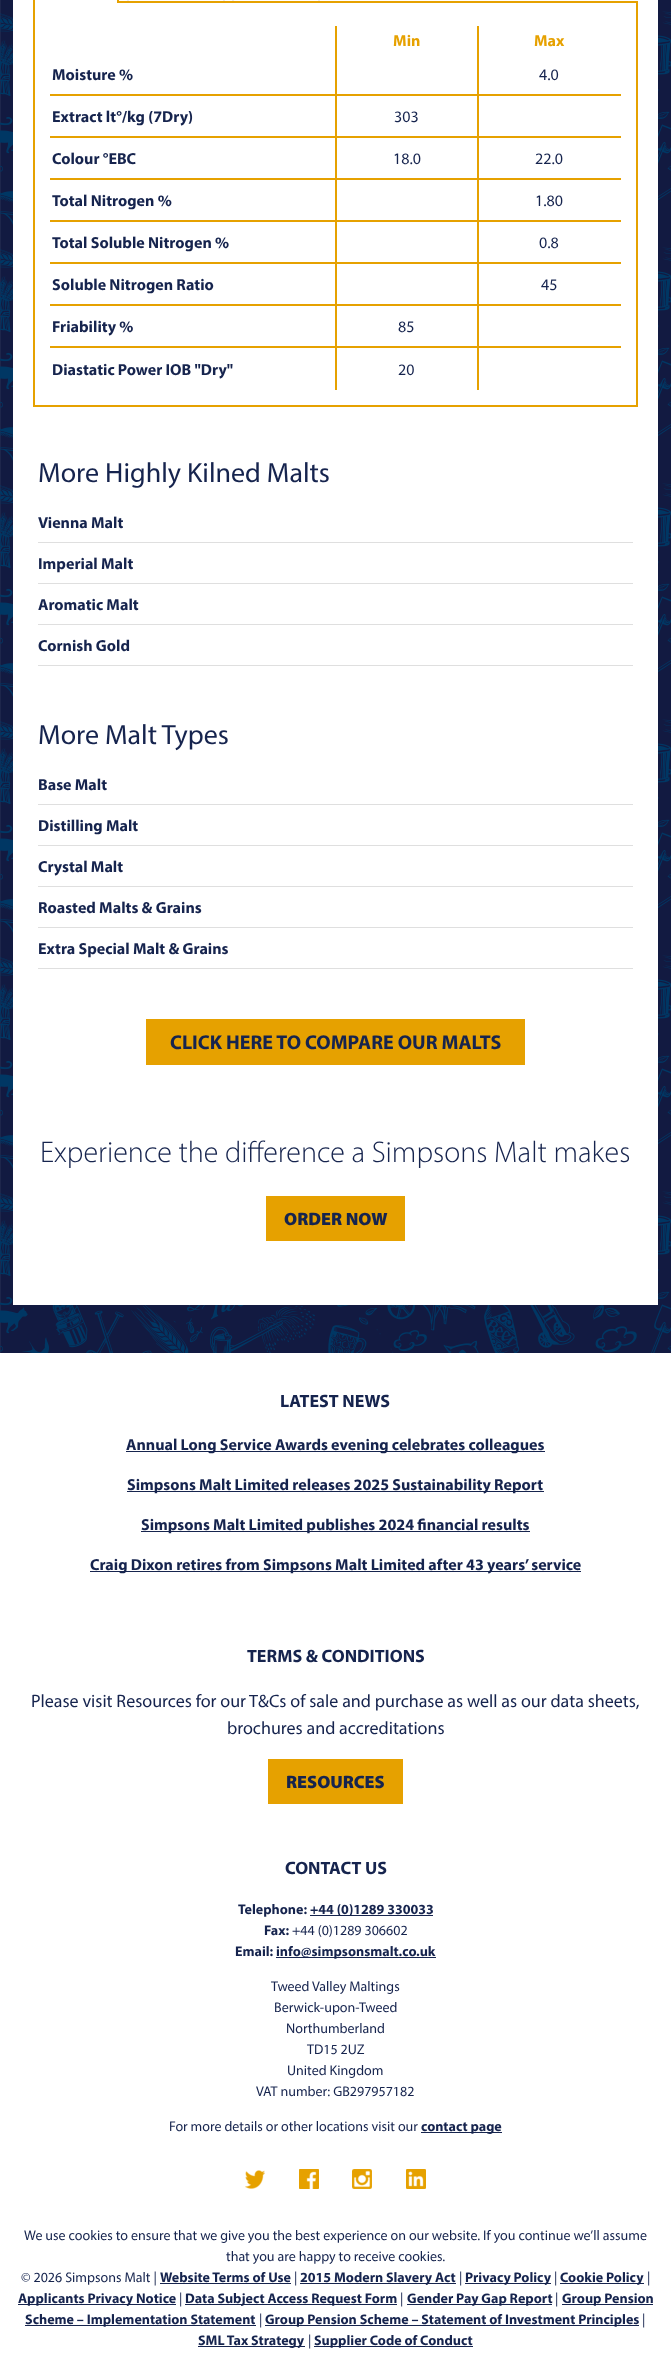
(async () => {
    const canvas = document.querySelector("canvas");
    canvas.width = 671;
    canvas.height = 2365;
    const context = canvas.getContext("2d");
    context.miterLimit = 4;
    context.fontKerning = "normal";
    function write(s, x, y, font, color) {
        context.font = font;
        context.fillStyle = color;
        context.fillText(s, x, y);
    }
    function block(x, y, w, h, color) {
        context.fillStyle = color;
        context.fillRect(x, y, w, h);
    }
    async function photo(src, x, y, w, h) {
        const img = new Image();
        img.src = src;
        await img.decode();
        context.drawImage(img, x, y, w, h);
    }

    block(0, 0, 671, 2365, "rgb(255, 255, 255)");
    await photo("media/1.png", 0, 0, 671, 1353);
    block(13, 0, 645, 1305, "rgb(255, 255, 255)");
    block(223, 0, 2, 3, "rgb(234, 237, 242)");
    block(127, 0, 2, 3, "rgb(234, 237, 242)");
    block(318, 0, 2, 3, "rgb(234, 237, 242)");
    block(232, 0, 2, 3, "rgb(234, 237, 242)");
    context.strokeStyle = "rgb(230, 161, 0)";
    context.lineWidth = 2;
    context.strokeRect(34, 2, 603, 404);
    block(33, 1, 86, 2, "rgb(255, 255, 255)");
    block(117, 0, 2, 3, "rgb(230, 161, 0)");
    block(33, 0, 2, 3, "rgb(230, 161, 0)");
    write("Min", 393, 46, "bold 16px Myriad", "rgb(230, 161, 0)");
    write("Max", 534, 46, "bold 16px Myriad", "rgb(230, 161, 0)");
    block(50, 94, 571, 2, "rgb(230, 161, 0)");
    write("Moisture %", 52, 80, "bold 16px Myriad", "rgb(22, 36, 78)");
    write("4.0", 539, 80, "16px Myriad", "rgb(22, 36, 78)");
    block(50, 136, 571, 2, "rgb(230, 161, 0)");
    write("Extract lt°/kg (7Dry)", 52, 122, "bold 16px Myriad", "rgb(22, 36, 78)");
    write("303", 394, 122, "16px Myriad", "rgb(22, 36, 78)");
    block(50, 178, 571, 2, "rgb(230, 161, 0)");
    write("Colour °EBC", 52, 164, "bold 16px Myriad", "rgb(22, 36, 78)");
    write("18.0", 393, 164, "16px Myriad", "rgb(22, 36, 78)");
    write("22.0", 535, 164, "16px Myriad", "rgb(22, 36, 78)");
    block(50, 220, 571, 2, "rgb(230, 161, 0)");
    write("Total Nitrogen %", 52, 206, "bold 16px Myriad", "rgb(22, 36, 78)");
    write("1.80", 535, 206, "16px Myriad", "rgb(22, 36, 78)");
    block(50, 262, 571, 2, "rgb(230, 161, 0)");
    write("Total Soluble Nitrogen %", 52, 248, "bold 16px Myriad", "rgb(22, 36, 78)");
    write("0.8", 539, 248, "16px Myriad", "rgb(22, 36, 78)");
    block(50, 304, 571, 2, "rgb(230, 161, 0)");
    write("Soluble Nitrogen Ratio", 52, 290, "bold 16px Myriad", "rgb(22, 36, 78)");
    write("45", 541, 290, "16px Myriad", "rgb(22, 36, 78)");
    block(50, 346, 571, 2, "rgb(230, 161, 0)");
    write("Friability %", 52, 332, "bold 16px Myriad", "rgb(22, 36, 78)");
    write("85", 398, 332, "16px Myriad", "rgb(22, 36, 78)");
    block(335, 26, 2, 364, "rgb(230, 161, 0)");
    write("Diastatic Power IOB \"Dry\"", 52, 375, "bold 16px Myriad", "rgb(22, 36, 78)");
    block(477, 26, 2, 364, "rgb(230, 161, 0)");
    write("20", 398, 375, "16px Myriad", "rgb(22, 36, 78)");
    write("More Highly Kilned Malts", 38, 482, "28px Myriad", "rgb(22, 36, 78)");
    block(38, 542, 595, 1, "rgb(223, 223, 223)");
    write("Vienna Malt", 38, 528, "bold 16px Myriad", "rgb(22, 36, 78)");
    block(38, 583, 595, 1, "rgb(223, 223, 223)");
    write("Imperial Malt", 38, 569, "bold 16px Myriad", "rgb(22, 36, 78)");
    block(38, 624, 595, 1, "rgb(223, 223, 223)");
    write("Aromatic Malt", 38, 610, "bold 16px Myriad", "rgb(22, 36, 78)");
    block(38, 665, 595, 1, "rgb(223, 223, 223)");
    write("Cornish Gold", 38, 651, "bold 16px Myriad", "rgb(22, 36, 78)");
    write("More Malt Types", 38, 744, "28px Myriad", "rgb(22, 36, 78)");
    block(38, 804, 595, 1, "rgb(223, 223, 223)");
    write("Base Malt", 38, 790, "bold 16px Myriad", "rgb(22, 36, 78)");
    block(38, 845, 595, 1, "rgb(223, 223, 223)");
    write("Distilling Malt", 38, 831, "bold 16px Myriad", "rgb(22, 36, 78)");
    block(38, 886, 595, 1, "rgb(223, 223, 223)");
    write("Crystal Malt", 38, 872, "bold 16px Myriad", "rgb(22, 36, 78)");
    block(38, 927, 595, 1, "rgb(223, 223, 223)");
    write("Roasted Malts & Grains", 38, 913, "bold 16px Myriad", "rgb(22, 36, 78)");
    block(38, 968, 595, 1, "rgb(223, 223, 223)");
    write("Extra Special Malt & Grains", 38, 954, "bold 16px Myriad", "rgb(22, 36, 78)");
    block(146, 1019, 379, 46, "rgb(230, 161, 0)");
    write("CLICK HERE TO COMPARE OUR MALTS", 170, 1049, "bold 20px Myriad", "rgb(22, 36, 78)");
    write("Experience the difference a Simpsons Malt makes", 40, 1162, "300 30px Myriad", "rgb(22, 36, 78)");
    block(266, 1196, 139, 45, "rgb(230, 161, 0)");
    write("ORDER NOW", 284, 1225, "900 18px Myriad", "rgb(22, 36, 78)");
    write("LATEST NEWS", 280, 1407, "bold 18px Myriad", "rgb(22, 36, 78)");
    block(126, 1451, 419, 1, "rgb(22, 36, 78)");
    write("Annual Long Service Awards evening celebrates colleagues", 126, 1450, "bold 16px Myriad", "rgb(22, 36, 78)");
    block(127, 1491, 417, 1, "rgb(22, 36, 78)");
    write("Simpsons Malt Limited releases 2025 Sustainability Report", 127, 1490, "bold 16px Myriad", "rgb(22, 36, 78)");
    block(141, 1531, 389, 1, "rgb(22, 36, 78)");
    write("Simpsons Malt Limited publishes 2024 financial results", 141, 1530, "bold 16px Myriad", "rgb(22, 36, 78)");
    block(90, 1571, 491, 1, "rgb(22, 36, 78)");
    write("Craig Dixon retires from Simpsons Malt Limited after 43 years’ service", 90, 1570, "bold 16px Myriad", "rgb(22, 36, 78)");
    write("TERMS & CONDITIONS", 247, 1662, "bold 18px Myriad", "rgb(22, 36, 78)");
    write("Please visit Resources for our T&Cs of sale and purchase as well as our data sheets,", 31, 1707, "18px Myriad", "rgb(22, 36, 78)");
    write("brochures and accreditations", 227, 1734, "18px Myriad", "rgb(22, 36, 78)");
    block(268, 1759, 135, 45, "rgb(230, 161, 0)");
    write("RESOURCES", 286, 1788, "900 18px Myriad", "rgb(22, 36, 78)");
    write("CONTACT US", 285, 1874, "bold 18px Myriad", "rgb(22, 36, 78)");
    write("Telephone:", 238, 1914, "bold 14px Myriad", "rgb(22, 36, 78)");
    block(310, 1915, 123, 1, "rgb(22, 36, 78)");
    write("+44 (0)1289 330033", 310, 1914, "bold 14px Myriad", "rgb(22, 36, 78)");
    write("Fax:", 264, 1935, "bold 14px Myriad", "rgb(22, 36, 78)");
    write("+44 (0)1289 306602", 292, 1935, "14px Myriad", "rgb(22, 36, 78)");
    write("Email:", 235, 1956, "bold 14px Myriad", "rgb(22, 36, 78)");
    block(276, 1957, 160, 1, "rgb(22, 36, 78)");
    write("info@simpsonsmalt.co.uk", 276, 1956, "bold 14px Myriad", "rgb(22, 36, 78)");
    write("Tweed Valley Maltings", 271, 1991, "14px Myriad", "rgb(22, 36, 78)");
    write("Berwick-upon-Tweed", 274, 2012, "14px Myriad", "rgb(22, 36, 78)");
    write("Northumberland", 286, 2033, "14px Myriad", "rgb(22, 36, 78)");
    write("TD15 2UZ", 307, 2054, "14px Myriad", "rgb(22, 36, 78)");
    write("United Kingdom", 287, 2075, "14px Myriad", "rgb(22, 36, 78)");
    write("VAT number: GB297957182", 256, 2096, "14px Myriad", "rgb(22, 36, 78)");
    write("For more details or other locations visit our", 169, 2131, "14px Myriad", "rgb(22, 36, 78)");
    block(421, 2132, 81, 1, "rgb(22, 36, 78)");
    write("contact page", 421, 2131, "bold 14px Myriad", "rgb(22, 36, 78)");
    await photo("media/2.png", 245, 2170, 20, 19);
    await photo("media/3.png", 299, 2169, 20, 20);
    await photo("media/4.png", 352, 2169, 20, 20);
    await photo("media/5.png", 406, 2169, 20, 20);
    write("We use cookies to ensure that we give you the best experience on our website. If you continue we’ll assume", 24, 2240, "14px Myriad", "rgb(22, 36, 78)");
    write("that you are happy to receive cookies.", 226, 2261, "14px Myriad", "rgb(22, 36, 78)");
    write("© 2026 Simpsons Malt |", 21, 2282, "14px Myriad", "rgb(22, 36, 78)");
    write("Website Terms of Use", 160, 2282, "bold 14px Myriad", "rgb(22, 36, 78)");
    block(160, 2283, 131, 1, "rgb(22, 36, 78)");
    write("|", 294, 2282, "14px Myriad", "rgb(22, 36, 78)");
    block(300, 2283, 156, 1, "rgb(22, 36, 78)");
    write("2015 Modern Slavery Act", 300, 2282, "bold 14px Myriad", "rgb(22, 36, 78)");
    write("|", 459, 2282, "14px Myriad", "rgb(22, 36, 78)");
    block(465, 2283, 86, 1, "rgb(22, 36, 78)");
    write("Privacy Policy", 465, 2282, "bold 14px Myriad", "rgb(22, 36, 78)");
    write("|", 554, 2282, "14px Myriad", "rgb(22, 36, 78)");
    block(560, 2283, 84, 1, "rgb(22, 36, 78)");
    write("Cookie Policy", 560, 2282, "bold 14px Myriad", "rgb(22, 36, 78)");
    write("|", 647, 2282, "14px Myriad", "rgb(22, 36, 78)");
    block(18, 2304, 158, 1, "rgb(22, 36, 78)");
    write("Applicants Privacy Notice", 18, 2303, "bold 14px Myriad", "rgb(22, 36, 78)");
    write("|", 179, 2303, "14px Myriad", "rgb(22, 36, 78)");
    block(185, 2304, 212, 1, "rgb(22, 36, 78)");
    write("Data Subject Access Request Form", 185, 2303, "bold 14px Myriad", "rgb(22, 36, 78)");
    write("|", 400, 2303, "14px Myriad", "rgb(22, 36, 78)");
    block(407, 2304, 145, 1, "rgb(22, 36, 78)");
    write("Gender Pay Gap Report", 407, 2303, "bold 14px Myriad", "rgb(22, 36, 78)");
    write("|", 555, 2303, "14px Myriad", "rgb(22, 36, 78)");
    block(562, 2304, 91, 1, "rgb(22, 36, 78)");
    write("Group Pension", 562, 2303, "bold 14px Myriad", "rgb(22, 36, 78)");
    block(25, 2325, 231, 1, "rgb(22, 36, 78)");
    write("Scheme – Implementation Statement", 25, 2324, "bold 14px Myriad", "rgb(22, 36, 78)");
    write("|", 259, 2324, "14px Myriad", "rgb(22, 36, 78)");
    block(265, 2325, 374, 1, "rgb(22, 36, 78)");
    write("Group Pension Scheme – Statement of Investment Principles", 265, 2324, "bold 14px Myriad", "rgb(22, 36, 78)");
    write("|", 642, 2324, "14px Myriad", "rgb(22, 36, 78)");
    block(198, 2346, 107, 1, "rgb(22, 36, 78)");
    write("SML Tax Strategy", 198, 2345, "bold 14px Myriad", "rgb(22, 36, 78)");
    write("|", 308, 2345, "14px Myriad", "rgb(22, 36, 78)");
    block(314, 2346, 159, 1, "rgb(22, 36, 78)");
    write("Supplier Code of Conduct", 314, 2345, "bold 14px Myriad", "rgb(22, 36, 78)");
})();
